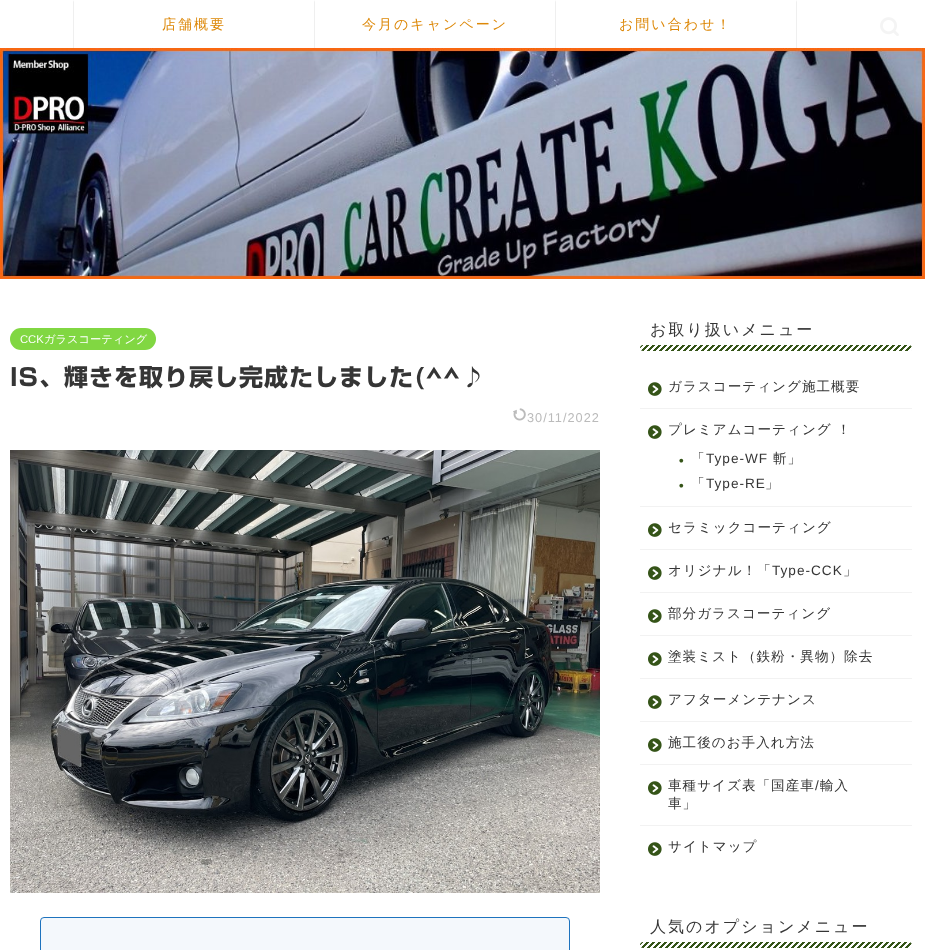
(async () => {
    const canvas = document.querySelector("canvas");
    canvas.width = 925;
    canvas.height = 950;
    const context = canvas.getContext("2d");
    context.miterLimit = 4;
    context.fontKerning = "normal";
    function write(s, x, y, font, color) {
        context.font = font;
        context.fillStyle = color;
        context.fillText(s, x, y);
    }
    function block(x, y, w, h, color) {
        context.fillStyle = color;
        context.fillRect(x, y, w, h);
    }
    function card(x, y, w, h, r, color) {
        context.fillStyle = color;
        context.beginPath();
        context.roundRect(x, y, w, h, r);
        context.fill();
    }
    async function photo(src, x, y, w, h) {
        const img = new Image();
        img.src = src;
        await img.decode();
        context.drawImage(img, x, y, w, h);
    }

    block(0, 0, 925, 950, "rgb(255, 255, 255)");
    context.fillStyle = "rgb(239, 239, 239)";
    context.beginPath();
    context.moveTo(73, 48);
    context.lineTo(73, 0);
    context.lineTo(74, 2);
    context.lineTo(74, 48);
    context.closePath();
    context.fill();
    context.letterSpacing = "2px";
    write("店舗概要", 162, 29, "500 14px WenQuanYi Zen Hei", "rgb(221, 136, 8)");
    context.fillStyle = "rgb(239, 239, 239)";
    context.beginPath();
    context.moveTo(314, 48);
    context.lineTo(314, 0);
    context.lineTo(315, 2);
    context.lineTo(315, 48);
    context.closePath();
    context.fill();
    write("今月のキャンペーン", 362, 29, "500 14px WenQuanYi Zen Hei", "rgb(221, 136, 8)");
    context.fillStyle = "rgb(239, 239, 239)";
    context.beginPath();
    context.moveTo(797, 0);
    context.lineTo(797, 48);
    context.lineTo(796, 48);
    context.lineTo(796, 2);
    context.closePath();
    context.fill();
    context.beginPath();
    context.moveTo(555, 48);
    context.lineTo(555, 0);
    context.lineTo(556, 2);
    context.lineTo(556, 48);
    context.closePath();
    context.fill();
    write("お問い合わせ！", 619, 29, "500 14px WenQuanYi Zen Hei", "rgb(221, 136, 8)");
    await photo("media/1.png", 880, 17, 19, 19);
    await photo("media/2.png", 0, 48, 925, 231);
    card(10, 328, 146, 22, 11, "rgb(129, 215, 66)");
    context.letterSpacing = "0px";
    write("CCK", 20, 343, "11.25px Liberation Sans", "rgb(255, 255, 255)");
    write("ガラスコーティング", 44, 343, "500 11.25px WenQuanYi Zen Hei", "rgb(255, 255, 255)");
    context.letterSpacing = "1px";
    write("IS、輝きを取り戻し完成たしました(^^♪", 10, 386, "bold 24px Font", "rgb(53, 53, 53)");
    await photo("media/3.png", 513, 408, 13, 13);
    write("30/11/2022", 527, 422, "12.75px Liberation Sans", "rgb(187, 187, 187)");
    await photo("media/4.png", 10, 450, 590, 443);
    block(41, 918, 528, 32, "rgb(244, 248, 252)");
    context.beginPath();
    context.roundRect(40.5, 917.5, 529, 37, 3.5);
    context.strokeStyle = "rgb(30, 115, 190)";
    context.stroke();
    context.letterSpacing = "2px";
    write("お取り扱いメニュー", 650, 335, "500 16px WenQuanYi Zen Hei", "rgb(53, 53, 53)");
    await photo("media/5.png", 640, 345, 272, 6);
    block(640, 408, 272, 1, "rgb(242, 242, 242)");
    await photo("media/6.png", 648, 382, 14, 14);
    context.letterSpacing = "1px";
    write("ガラスコーティング施工概要", 668, 391, "500 13.6px WenQuanYi Zen Hei", "rgb(53, 53, 53)");
    block(640, 506, 272, 1, "rgb(242, 242, 242)");
    await photo("media/6.png", 648, 425, 14, 14);
    write("プレミアムコーティング ！", 668, 434, "500 13.6px WenQuanYi Zen Hei", "rgb(53, 53, 53)");
    write("・", 669, 469, "500 24px WenQuanYi Zen Hei", "rgb(53, 84, 24)");
    write("「", 691, 463, "500 13.6px WenQuanYi Zen Hei", "rgb(53, 53, 53)");
    write("Type-WF", 706, 463, "13.6px Liberation Sans", "rgb(53, 53, 53)");
    write("斬」", 773, 463, "500 13.6px WenQuanYi Zen Hei", "rgb(53, 53, 53)");
    write("・", 669, 494, "500 24px WenQuanYi Zen Hei", "rgb(53, 84, 24)");
    write("「", 691, 488, "500 13.6px WenQuanYi Zen Hei", "rgb(53, 53, 53)");
    write("Type-RE", 706, 488, "13.6px Liberation Sans", "rgb(53, 53, 53)");
    write("」", 765, 488, "500 13.6px WenQuanYi Zen Hei", "rgb(53, 53, 53)");
    block(640, 549, 272, 1, "rgb(242, 242, 242)");
    await photo("media/6.png", 648, 523, 14, 14);
    write("セラミックコーティング", 668, 532, "500 13.6px WenQuanYi Zen Hei", "rgb(53, 53, 53)");
    block(640, 592, 272, 1, "rgb(242, 242, 242)");
    await photo("media/6.png", 648, 566, 14, 14);
    write("オリジナル！「", 668, 575, "500 13.6px WenQuanYi Zen Hei", "rgb(53, 53, 53)");
    write("Type-CCK", 772, 575, "13.6px Liberation Sans", "rgb(53, 53, 53)");
    write("」", 843, 575, "500 13.6px WenQuanYi Zen Hei", "rgb(53, 53, 53)");
    block(640, 635, 272, 1, "rgb(242, 242, 242)");
    await photo("media/6.png", 648, 609, 14, 14);
    write("部分ガラスコーティング", 668, 618, "500 13.6px WenQuanYi Zen Hei", "rgb(53, 53, 53)");
    block(640, 678, 272, 1, "rgb(242, 242, 242)");
    await photo("media/6.png", 648, 652, 14, 14);
    write("塗装ミスト（鉄粉・異物）除去", 668, 661, "500 13.6px WenQuanYi Zen Hei", "rgb(53, 53, 53)");
    block(640, 721, 272, 1, "rgb(242, 242, 242)");
    await photo("media/6.png", 648, 695, 14, 14);
    write("アフターメンテナンス", 668, 704, "500 13.6px WenQuanYi Zen Hei", "rgb(53, 53, 53)");
    block(640, 764, 272, 1, "rgb(242, 242, 242)");
    await photo("media/6.png", 648, 738, 14, 14);
    write("施工後のお手入れ方法", 668, 747, "500 13.6px WenQuanYi Zen Hei", "rgb(53, 53, 53)");
    block(640, 825, 272, 1, "rgb(242, 242, 242)");
    write("車種サイズ表「国産車 輸入", 668, 790, "500 13.6px WenQuanYi Zen Hei", "rgb(53, 53, 53)");
    await photo("media/6.png", 648, 781, 14, 14);
    write("/", 815, 790, "13.6px Liberation Sans", "rgb(53, 53, 53)");
    write("車」", 668, 808, "500 13.6px WenQuanYi Zen Hei", "rgb(53, 53, 53)");
    await photo("media/6.png", 648, 842, 14, 14);
    write("サイトマップ", 668, 851, "500 13.6px WenQuanYi Zen Hei", "rgb(53, 53, 53)");
    context.letterSpacing = "2px";
    write("人気のオプションメニュー", 650, 932, "500 16px WenQuanYi Zen Hei", "rgb(53, 53, 53)");
    await photo("media/5.png", 640, 942, 272, 6);
})();
